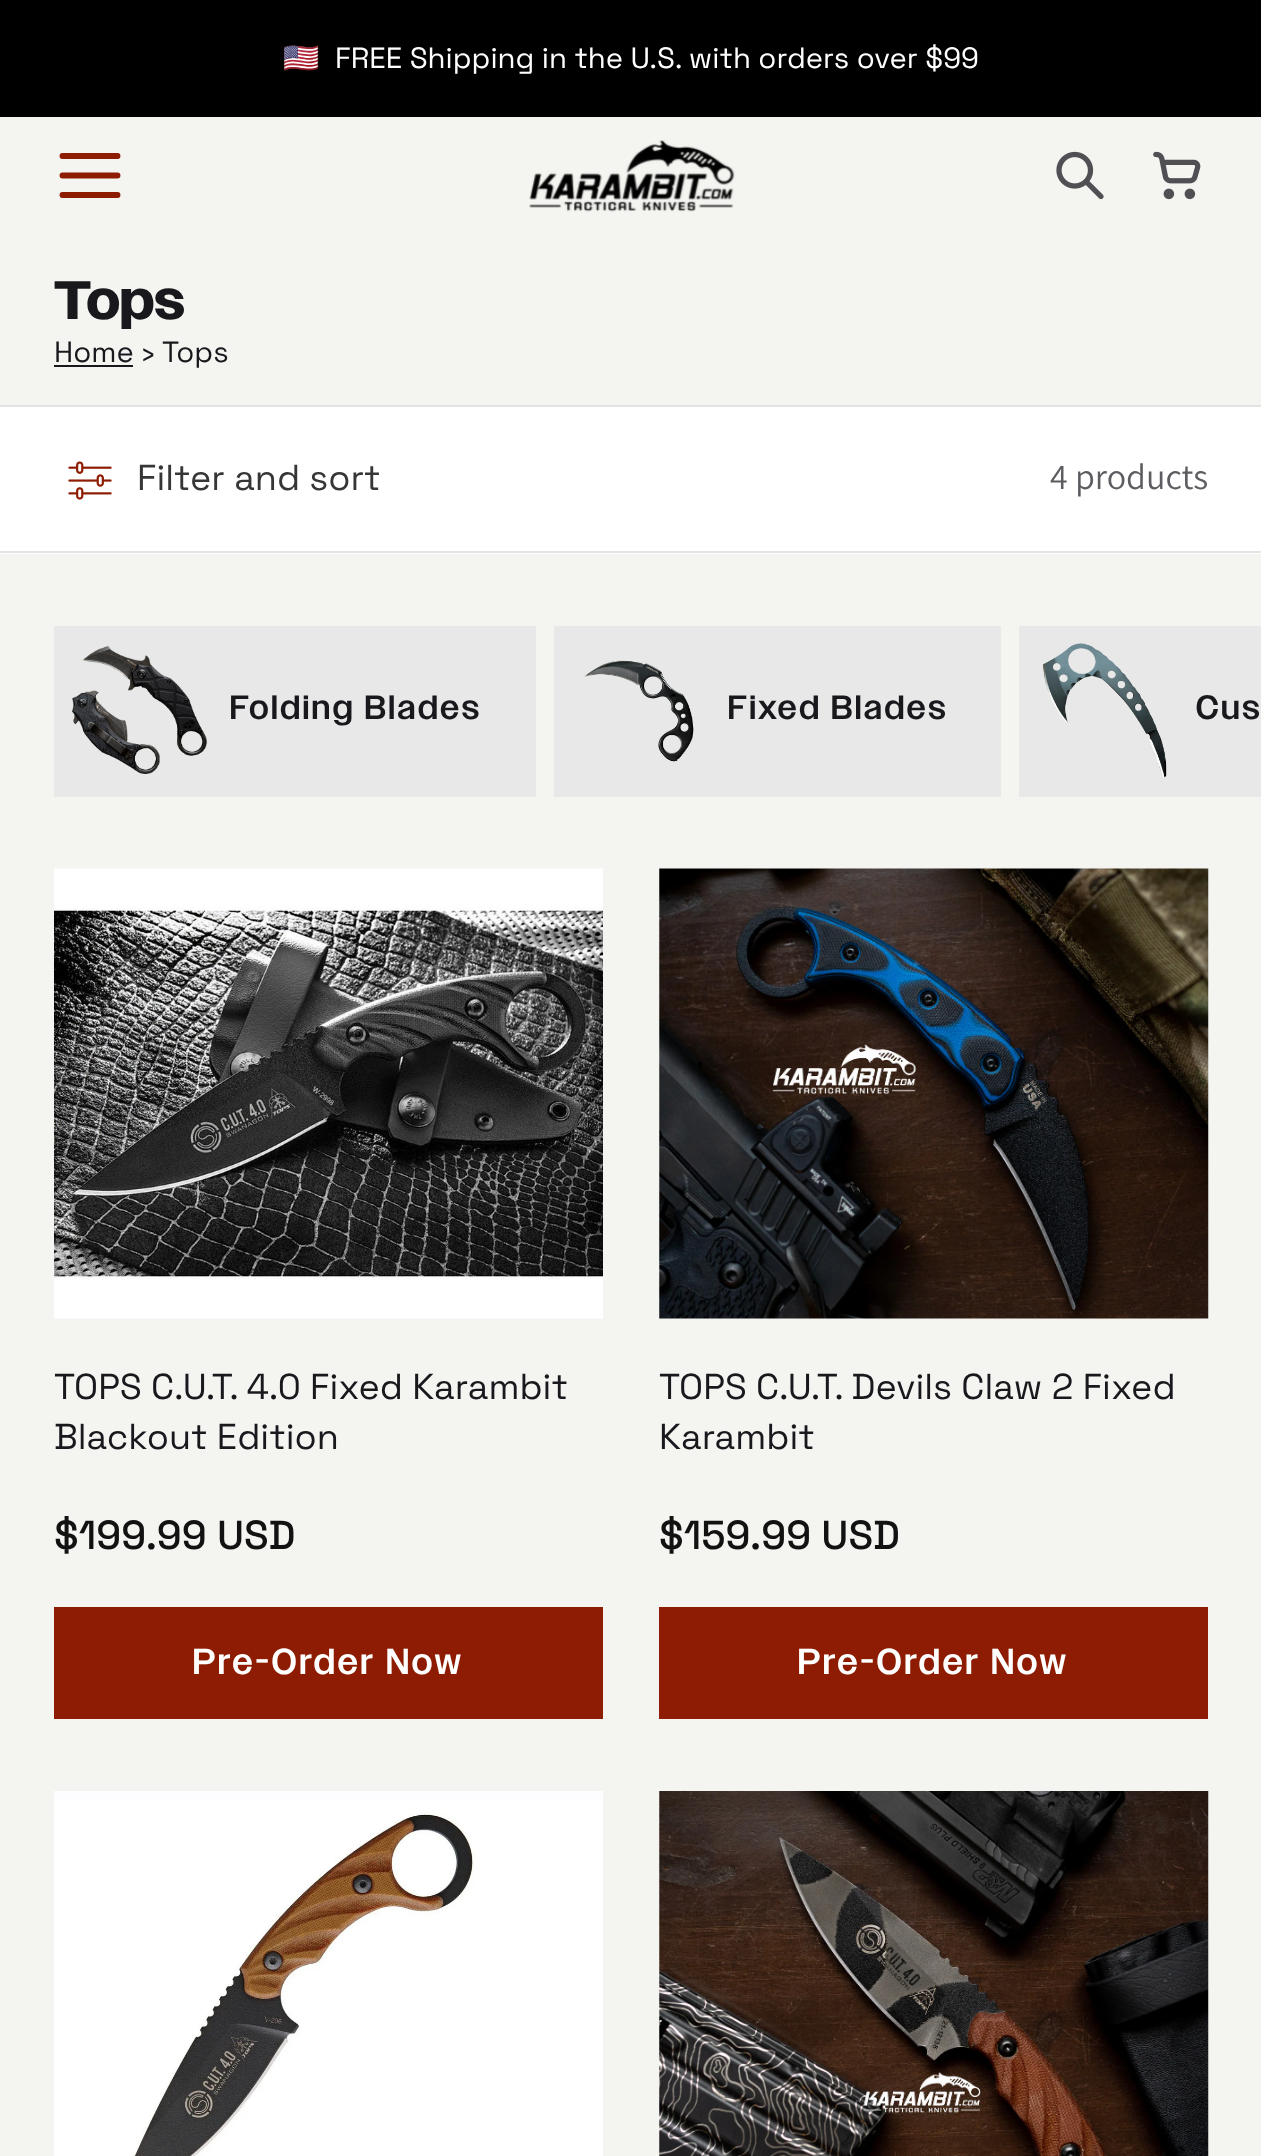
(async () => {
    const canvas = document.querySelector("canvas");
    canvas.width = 1261;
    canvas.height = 2156;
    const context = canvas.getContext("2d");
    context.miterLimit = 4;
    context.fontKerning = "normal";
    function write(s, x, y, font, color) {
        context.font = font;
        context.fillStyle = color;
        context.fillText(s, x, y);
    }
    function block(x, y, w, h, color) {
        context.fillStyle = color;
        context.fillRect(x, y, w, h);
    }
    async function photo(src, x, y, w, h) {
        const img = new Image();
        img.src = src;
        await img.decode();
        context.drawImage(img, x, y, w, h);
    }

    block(0, 0, 1261, 2156, "rgb(244, 244, 241)");
    block(0, 0, 1261, 117, "rgb(0, 0, 0)");
    write("🇺🇸", 283, 68, "29.25px Noto Color Emoji", "rgb(255, 255, 255)");
    write("FREE Shipping in the U.S. with orders over $99", 335, 68, "29.25px Space Grotesk", "rgb(255, 255, 255)");
    context.beginPath();
    context.moveTo(62.5, 195);
    context.lineTo(117.5, 195);
    context.moveTo(62.5, 175.5);
    context.lineTo(117.5, 175.5);
    context.moveTo(62.5, 156);
    context.lineTo(117.5, 156);
    context.strokeStyle = "rgb(141, 28, 2)";
    context.lineWidth = 5.9;
    context.lineCap = "round";
    context.lineJoin = "round";
    context.stroke();
    await photo("media/1.png", 529, 140, 206, 72);
    await photo("media/2.png", 1056, 151, 48, 49);
    await photo("media/3.png", 1153, 151, 48, 49);
    write("Tops", 54, 319, "bold 54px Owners", "rgb(24, 24, 29)");
    write("Home ›", 54, 362, "29.25px Space Grotesk", "rgb(24, 24, 29)");
    block(54, 365, 79, 2, "rgb(24, 24, 29)");
    write("Tops", 162, 362, "29.25px Space Grotesk", "rgb(24, 24, 29)");
    block(0, 407, 1261, 147, "rgb(255, 255, 255)");
    block(0, 405, 1261, 2, "rgb(227, 227, 227)");
    block(0, 551, 1261, 2, "rgb(227, 227, 227)");
    await photo("media/4.png", 68, 461, 44, 39);
    write("Filter and sort", 137, 490, "36px Space Grotesk", "rgb(54, 54, 54)");
    write("4 products", 1050, 489, "36px Assistant", "rgb(93, 93, 97)");
    block(54, 626, 482, 171, "rgb(232, 232, 232)");
    await photo("media/5.png", 72, 645, 135, 129);
    context.letterSpacing = "2.75px";
    write("Folding Blades", 230, 719, "500 33.75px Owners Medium", "rgb(24, 24, 29)");
    block(554, 626, 447, 171, "rgb(232, 232, 232)");
    await photo("media/6.png", 584, 660, 110, 102);
    write("Fixed Blades", 728, 719, "500 33.75px Owners Medium", "rgb(24, 24, 29)");
    block(1019, 626, 242, 171, "rgb(232, 232, 232)");
    await photo("media/7.png", 1043, 643, 124, 135);
    write("Cus", 1196, 719, "500 33.75px Owners Medium", "rgb(24, 24, 29)");
    await photo("media/8.png", 54, 868, 549, 451);
    context.letterSpacing = "0px";
    write("TOPS C.U.T. 4.0 Fixed Karambit", 54, 1399, "36px Space Grotesk", "rgb(24, 24, 29)");
    write("Blackout Edition", 54, 1449, "36px Space Grotesk", "rgb(24, 24, 29)");
    write("$199.99 USD", 54, 1549, "500 40.5px Space Grotesk", "rgb(18, 18, 18)");
    block(54, 1607, 549, 112, "rgb(141, 28, 2)");
    context.letterSpacing = "2.9px";
    write("Pre-Order Now", 193, 1674, "500 36px Owners Medium", "rgb(255, 255, 255)");
    await photo("media/9.png", 659, 868, 550, 451);
    context.letterSpacing = "0px";
    write("TOPS C.U.T. Devils Claw 2 Fixed", 659, 1399, "36px Space Grotesk", "rgb(24, 24, 29)");
    write("Karambit", 659, 1449, "36px Space Grotesk", "rgb(24, 24, 29)");
    write("$159.99 USD", 659, 1549, "500 40.5px Space Grotesk", "rgb(18, 18, 18)");
    block(659, 1607, 549, 112, "rgb(141, 28, 2)");
    context.letterSpacing = "2.9px";
    write("Pre-Order Now", 798, 1674, "500 36px Owners Medium", "rgb(255, 255, 255)");
    await photo("media/10.png", 54, 1791, 549, 365);
    await photo("media/11.png", 659, 1791, 550, 365);
})();
